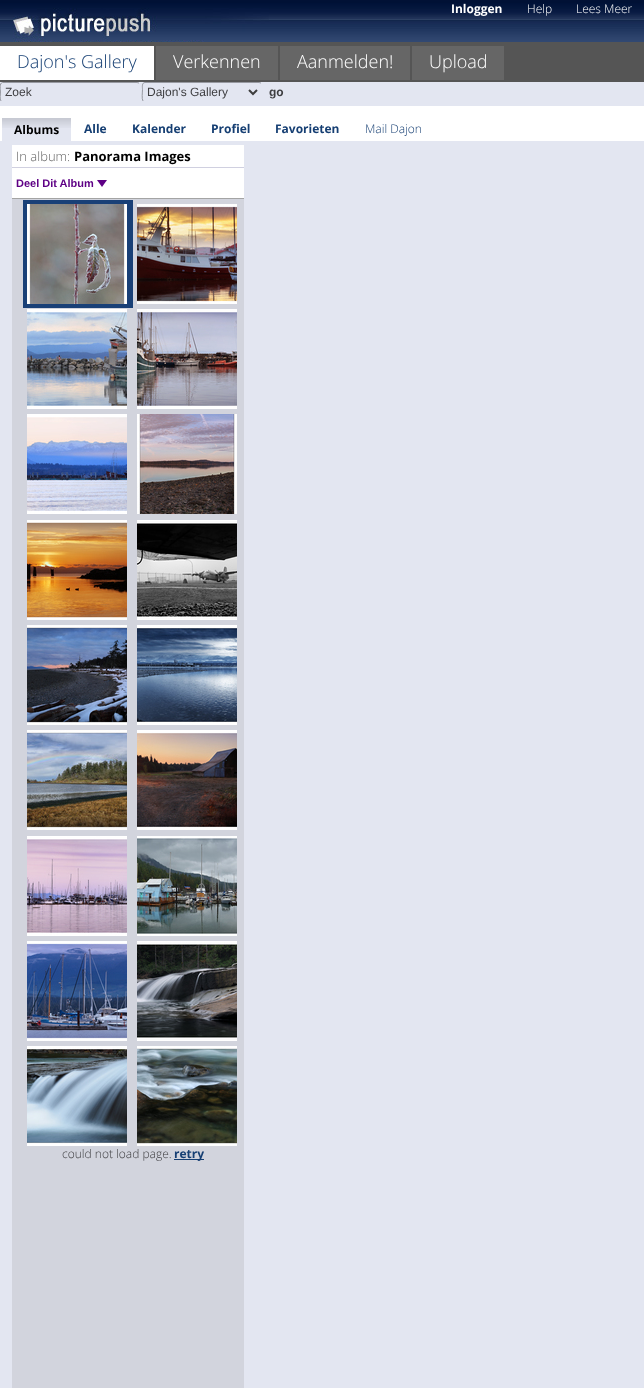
(async () => {
    const canvas = document.querySelector("canvas");
    canvas.width = 644;
    canvas.height = 1388;
    const context = canvas.getContext("2d");
    context.miterLimit = 4;
    context.fontKerning = "normal";
    function write(s, x, y, font, color) {
        context.font = font;
        context.fillStyle = color;
        context.fillText(s, x, y);
    }
    function block(x, y, w, h, color) {
        context.fillStyle = color;
        context.fillRect(x, y, w, h);
    }
    async function photo(src, x, y, w, h) {
        const img = new Image();
        img.src = src;
        await img.decode();
        context.drawImage(img, x, y, w, h);
    }

    block(0, 0, 644, 1388, "rgb(227, 230, 241)");
    await photo("media/1.png", 0, 0, 644, 42);
    await photo("media/2.png", 13, 8, 256, 34);
    write("Inloggen", 451, 13, "bold 12px Open Sans", "rgb(255, 255, 255)");
    write("Help", 527, 13, "300 12px Open Sans", "rgb(255, 255, 255)");
    write("Lees Meer", 576, 13, "300 12px Open Sans", "rgb(255, 255, 255)");
    block(0, 42, 644, 40, "rgb(85, 85, 85)");
    block(0, 46, 154, 34, "rgb(255, 255, 255)");
    write("Dajon's Gallery", 17, 68, "300 18px Open Sans", "rgb(22, 63, 115)");
    block(156, 46, 122, 34, "rgb(102, 102, 102)");
    write("Verkennen", 173, 68, "300 18px Open Sans", "rgb(255, 255, 255)");
    block(280, 46, 130, 34, "rgb(102, 102, 102)");
    write("Aanmelden!", 297, 68, "300 18px Open Sans", "rgb(255, 255, 255)");
    block(412, 46, 92, 34, "rgb(102, 102, 102)");
    write("Upload", 429, 68, "300 18px Open Sans", "rgb(255, 255, 255)");
    context.beginPath();
    context.moveTo(1, 101);
    context.bezierCurveTo(-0.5, 99, 0.5, 94, 0.5, 92);
    context.bezierCurveTo(0.5, 90, -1, 83, 2.5, 82.5);
    context.lineTo(137, 82.5);
    context.lineTo(139, 83);
    context.strokeStyle = "rgb(151, 153, 161)";
    context.stroke();
    write("Zoek", 5, 96, "12px Liberation Sans", "rgb(62, 62, 65)");
    context.beginPath();
    context.moveTo(143, 101);
    context.bezierCurveTo(141.5, 99, 142.5, 92, 142.5, 89.5);
    context.bezierCurveTo(142.5, 87.5, 141.5, 82.5, 145, 82.5);
    context.lineTo(259, 82.5);
    context.lineTo(261, 83);
    context.stroke();
    context.beginPath();
    context.moveTo(249, 90);
    context.lineTo(253, 94);
    context.lineTo(257, 90);
    context.strokeStyle = "rgb(62, 62, 62)";
    context.lineWidth = 2;
    context.stroke();
    write("Dajon's Gallery", 147, 96, "12px Liberation Sans", "rgb(62, 62, 65)");
    write("go", 269, 96, "bold 12px Liberation Sans", "rgb(62, 62, 65)");
    block(0, 106, 644, 35, "rgb(255, 255, 255)");
    block(2, 118, 69, 23, "rgb(227, 230, 241)");
    await photo("media/3.png", 2, 118, 69, 10);
    write("Albums", 14, 134, "bold 12px Open Sans", "rgb(0, 0, 0)");
    write("Alle", 84, 133, "bold 12px Open Sans", "rgb(22, 63, 115)");
    write("Kalender", 132, 133, "bold 12px Open Sans", "rgb(22, 63, 115)");
    write("Profiel", 211, 133, "bold 12px Open Sans", "rgb(22, 63, 115)");
    write("Favorieten", 275, 133, "bold 12px Open Sans", "rgb(22, 63, 115)");
    write("Mail Dajon", 365, 133, "300 12px Open Sans", "rgb(22, 63, 115)");
    block(12, 145, 232, 53, "rgb(255, 255, 255)");
    block(12, 198, 232, 1, "rgb(164, 164, 164)");
    write("In album:", 16, 161, "300 13px Open Sans", "rgb(102, 102, 102)");
    write("Panorama Images", 74, 161, "bold 13px Open Sans", "rgb(0, 0, 0)");
    block(12, 167, 232, 1, "rgb(208, 208, 224)");
    write("Deel Dit Album", 16, 187, "bold 11px Liberation Sans", "rgb(94, 0, 133)");
    context.beginPath();
    context.moveTo(97, 180);
    context.lineTo(107, 180);
    context.lineTo(102, 187);
    context.closePath();
    context.fill();
    block(12, 199, 232, 1189, "rgb(210, 212, 221)");
    block(23, 200, 110, 108, "rgb(25, 64, 119)");
    await photo("media/4.png", 27, 204, 100, 100);
    await photo("media/5.png", 137, 204, 100, 100);
    await photo("media/6.png", 27, 309, 100, 100);
    await photo("media/7.png", 137, 309, 100, 100);
    await photo("media/8.png", 27, 414, 100, 100);
    await photo("media/9.png", 137, 414, 100, 100);
    await photo("media/10.png", 27, 520, 100, 100);
    await photo("media/11.png", 137, 520, 100, 100);
    await photo("media/12.png", 27, 625, 100, 100);
    await photo("media/13.png", 137, 625, 100, 100);
    await photo("media/14.png", 27, 730, 100, 100);
    await photo("media/15.png", 137, 730, 100, 100);
    await photo("media/16.png", 27, 836, 100, 100);
    await photo("media/17.png", 137, 836, 100, 100);
    await photo("media/18.png", 27, 941, 100, 100);
    await photo("media/19.png", 137, 941, 100, 100);
    await photo("media/20.png", 27, 1046, 100, 100);
    await photo("media/21.png", 137, 1046, 100, 100);
    write("could not load page.", 62, 1158, "300 12px Open Sans", "rgb(62, 62, 65)");
    block(174, 1159, 30, 1, "rgb(22, 63, 115)");
    write("retry", 174, 1158, "bold 12px Open Sans", "rgb(22, 63, 115)");
})();
